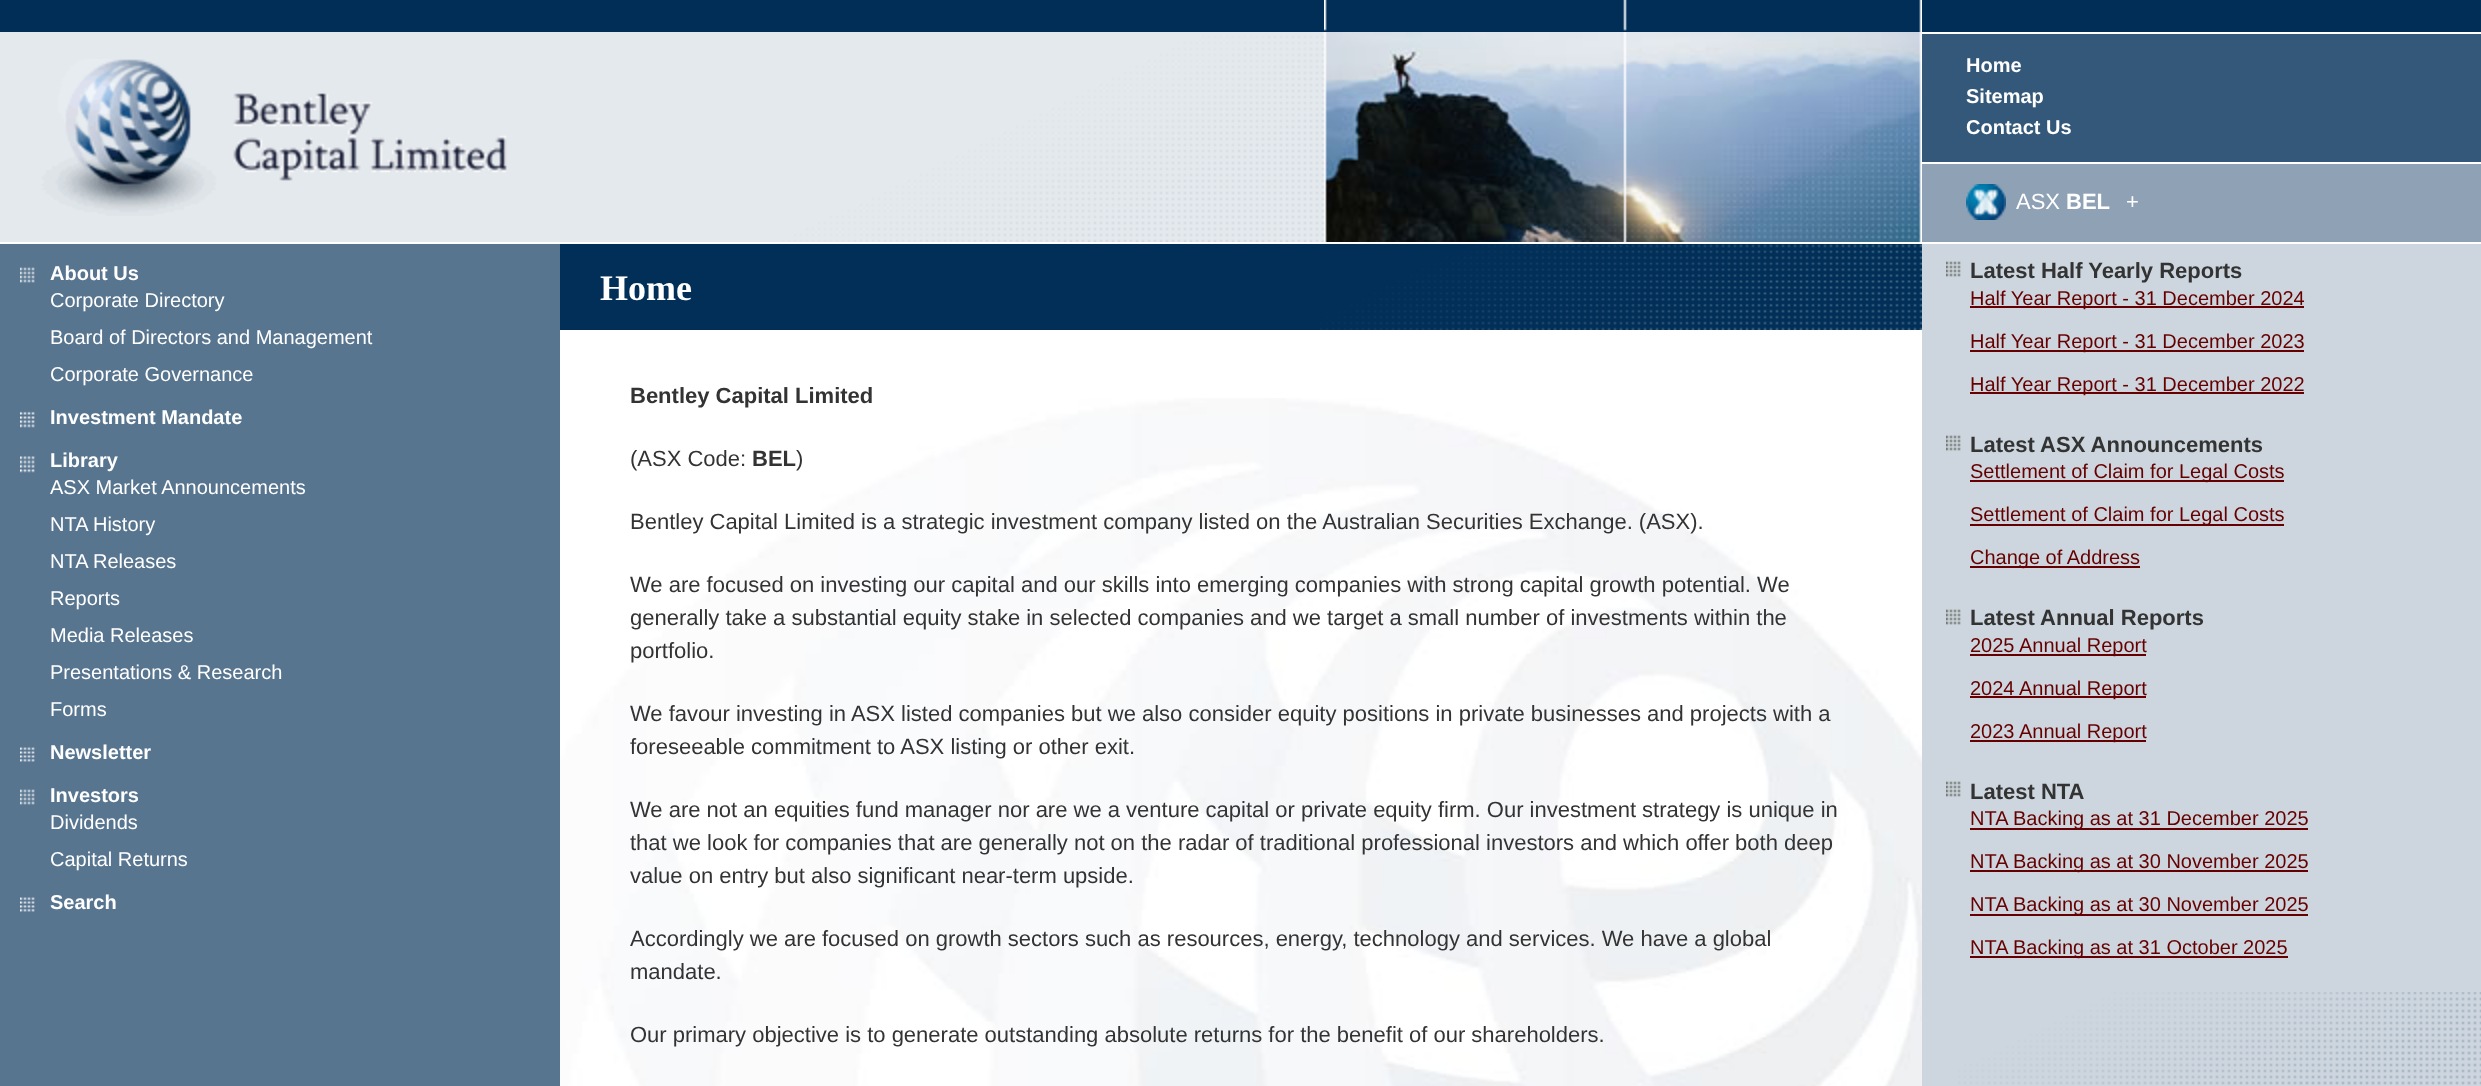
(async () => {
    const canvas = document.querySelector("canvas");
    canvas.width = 2481;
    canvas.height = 1086;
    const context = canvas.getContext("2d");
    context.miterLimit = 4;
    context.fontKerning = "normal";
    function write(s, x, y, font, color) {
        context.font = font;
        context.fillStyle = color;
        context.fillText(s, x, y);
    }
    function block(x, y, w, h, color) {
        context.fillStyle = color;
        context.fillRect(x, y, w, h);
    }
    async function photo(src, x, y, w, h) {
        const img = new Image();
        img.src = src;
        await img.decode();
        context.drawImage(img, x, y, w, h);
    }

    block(0, 0, 2481, 1086, "rgb(255, 255, 255)");
    block(0, 0, 2481, 32, "rgb(0, 46, 87)");
    await photo("media/1.png", 560, 398, 1362, 688);
    block(1922, 244, 559, 842, "rgb(205, 214, 222)");
    await photo("media/2.png", 1324, 0, 598, 32);
    block(0, 32, 782, 210, "rgb(228, 233, 237)");
    await photo("media/3.png", 782, 32, 1140, 210);
    await photo("media/4.png", 41, 59, 466, 157);
    await photo("media/5.png", 1958, 992, 523, 93);
    block(0, 244, 560, 842, "rgb(88, 117, 144)");
    await photo("media/6.png", 20, 267, 15, 16);
    write("About Us", 50, 280, "bold 20px Liberation Sans", "rgb(255, 255, 255)");
    write("Corporate Directory", 50, 307, "20px Liberation Sans", "rgb(255, 255, 255)");
    write("Board of Directors and Management", 50, 344, "20px Liberation Sans", "rgb(255, 255, 255)");
    write("Corporate Governance", 50, 381, "20px Liberation Sans", "rgb(255, 255, 255)");
    await photo("media/7.png", 20, 411, 15, 17);
    write("Investment Mandate", 50, 424, "bold 20px Liberation Sans", "rgb(255, 255, 255)");
    await photo("media/8.png", 20, 456, 15, 17);
    write("Library", 50, 467, "bold 20px Liberation Sans", "rgb(255, 255, 255)");
    write("ASX Market Announcements", 50, 494, "20px Liberation Sans", "rgb(255, 255, 255)");
    write("NTA History", 50, 531, "20px Liberation Sans", "rgb(255, 255, 255)");
    write("NTA Releases", 50, 568, "20px Liberation Sans", "rgb(255, 255, 255)");
    write("Reports", 50, 605, "20px Liberation Sans", "rgb(255, 255, 255)");
    write("Media Releases", 50, 642, "20px Liberation Sans", "rgb(255, 255, 255)");
    write("Presentations & Research", 50, 679, "20px Liberation Sans", "rgb(255, 255, 255)");
    write("Forms", 50, 716, "20px Liberation Sans", "rgb(255, 255, 255)");
    await photo("media/9.png", 20, 747, 15, 15);
    write("Newsletter", 50, 759, "bold 20px Liberation Sans", "rgb(255, 255, 255)");
    await photo("media/6.png", 20, 789, 15, 16);
    write("Investors", 50, 802, "bold 20px Liberation Sans", "rgb(255, 255, 255)");
    write("Dividends", 50, 829, "20px Liberation Sans", "rgb(255, 255, 255)");
    write("Capital Returns", 50, 866, "20px Liberation Sans", "rgb(255, 255, 255)");
    await photo("media/9.png", 20, 897, 15, 15);
    write("Search", 50, 909, "bold 20px Liberation Sans", "rgb(255, 255, 255)");
    block(560, 244, 760, 86, "rgb(1, 47, 88)");
    await photo("media/10.png", 1320, 244, 602, 86);
    write("Home", 600, 300, "bold 36px Liberation Serif", "rgb(255, 255, 255)");
    write("Bentley Capital Limited", 630, 403, "bold 22px Liberation Sans", "rgb(51, 51, 51)");
    write("(ASX Code:", 630, 466, "22px Liberation Sans", "rgb(51, 51, 51)");
    write("BEL", 752, 466, "bold 22px Liberation Sans", "rgb(51, 51, 51)");
    write(")", 796, 466, "22px Liberation Sans", "rgb(51, 51, 51)");
    write("Bentley Capital Limited is a strategic investment company listed on the Australian Securities Exchange. (ASX).", 630, 529, "22px Liberation Sans", "rgb(51, 51, 51)");
    write("We are focused on investing our capital and our skills into emerging companies with strong capital growth potential. We", 630, 592, "22px Liberation Sans", "rgb(51, 51, 51)");
    write("generally take a substantial equity stake in selected companies and we target a small number of investments within the", 630, 625, "22px Liberation Sans", "rgb(51, 51, 51)");
    write("portfolio.", 630, 658, "22px Liberation Sans", "rgb(51, 51, 51)");
    write("We favour investing in ASX listed companies but we also consider equity positions in private businesses and projects with a", 630, 721, "22px Liberation Sans", "rgb(51, 51, 51)");
    write("foreseeable commitment to ASX listing or other exit.", 630, 754, "22px Liberation Sans", "rgb(51, 51, 51)");
    write("We are not an equities fund manager nor are we a venture capital or private equity firm. Our investment strategy is unique in", 630, 817, "22px Liberation Sans", "rgb(51, 51, 51)");
    write("that we look for companies that are generally not on the radar of traditional professional investors and which offer both deep", 630, 850, "22px Liberation Sans", "rgb(51, 51, 51)");
    write("value on entry but also significant near-term upside.", 630, 883, "22px Liberation Sans", "rgb(51, 51, 51)");
    write("Accordingly we are focused on growth sectors such as resources, energy, technology and services. We have a global", 630, 946, "22px Liberation Sans", "rgb(51, 51, 51)");
    write("mandate.", 630, 979, "22px Liberation Sans", "rgb(51, 51, 51)");
    write("Our primary objective is to generate outstanding absolute returns for the benefit of our shareholders.", 630, 1042, "22px Liberation Sans", "rgb(51, 51, 51)");
    block(1922, 34, 559, 128, "rgb(51, 88, 121)");
    write("Home", 1966, 72, "bold 20px Liberation Sans", "rgb(255, 255, 255)");
    write("Sitemap", 1966, 103, "bold 20px Liberation Sans", "rgb(255, 255, 255)");
    write("Contact Us", 1966, 134, "bold 20px Liberation Sans", "rgb(255, 255, 255)");
    block(1922, 164, 559, 78, "rgb(142, 161, 181)");
    await photo("media/11.png", 1966, 184, 40, 36);
    write("ASX", 2016, 209, "22px Liberation Sans", "rgb(255, 255, 255)");
    write("BEL", 2066, 209, "bold 22px Liberation Sans", "rgb(255, 255, 255)");
    write("+", 2126, 209, "22px Liberation Sans", "rgb(255, 255, 255)");
    await photo("media/12.png", 1946, 261, 15, 16);
    write("Latest Half Yearly Reports", 1970, 278, "bold 22px Liberation Sans", "rgb(51, 51, 51)");
    block(1970, 306, 334, 2, "rgb(102, 0, 0)");
    write("Half Year Report - 31 December 2024", 1970, 305, "20px Liberation Sans", "rgb(102, 0, 0)");
    block(1970, 350, 334, 2, "rgb(102, 0, 0)");
    write("Half Year Report - 31 December 2023", 1970, 348, "20px Liberation Sans", "rgb(102, 0, 0)");
    block(1970, 392, 334, 2, "rgb(102, 0, 0)");
    write("Half Year Report - 31 December 2022", 1970, 391, "20px Liberation Sans", "rgb(102, 0, 0)");
    await photo("media/12.png", 1946, 435, 15, 16);
    write("Latest ASX Announcements", 1970, 452, "bold 22px Liberation Sans", "rgb(51, 51, 51)");
    block(1970, 480, 314, 2, "rgb(102, 0, 0)");
    write("Settlement of Claim for Legal Costs", 1970, 478, "20px Liberation Sans", "rgb(102, 0, 0)");
    block(1970, 524, 314, 2, "rgb(102, 0, 0)");
    write("Settlement of Claim for Legal Costs", 1970, 521, "20px Liberation Sans", "rgb(102, 0, 0)");
    block(1970, 566, 170, 2, "rgb(102, 0, 0)");
    write("Change of Address", 1970, 564, "20px Liberation Sans", "rgb(102, 0, 0)");
    await photo("media/12.png", 1946, 609, 15, 16);
    write("Latest Annual Reports", 1970, 625, "bold 22px Liberation Sans", "rgb(51, 51, 51)");
    block(1970, 654, 176, 2, "rgb(102, 0, 0)");
    write("2025 Annual Report", 1970, 652, "20px Liberation Sans", "rgb(102, 0, 0)");
    block(1970, 696, 176, 2, "rgb(102, 0, 0)");
    write("2024 Annual Report", 1970, 695, "20px Liberation Sans", "rgb(102, 0, 0)");
    block(1970, 740, 176, 2, "rgb(102, 0, 0)");
    write("2023 Annual Report", 1970, 738, "20px Liberation Sans", "rgb(102, 0, 0)");
    await photo("media/12.png", 1946, 781, 15, 16);
    write("Latest NTA", 1970, 799, "bold 22px Liberation Sans", "rgb(51, 51, 51)");
    block(1970, 828, 338, 2, "rgb(102, 0, 0)");
    write("NTA Backing as at 31 December 2025", 1970, 825, "20px Liberation Sans", "rgb(102, 0, 0)");
    block(1970, 870, 338, 2, "rgb(102, 0, 0)");
    write("NTA Backing as at 30 November 2025", 1970, 868, "20px Liberation Sans", "rgb(102, 0, 0)");
    block(1970, 914, 338, 2, "rgb(102, 0, 0)");
    write("NTA Backing as at 30 November 2025", 1970, 911, "20px Liberation Sans", "rgb(102, 0, 0)");
    block(1970, 956, 318, 2, "rgb(102, 0, 0)");
    write("NTA Backing as at 31 October 2025", 1970, 954, "20px Liberation Sans", "rgb(102, 0, 0)");
})();
